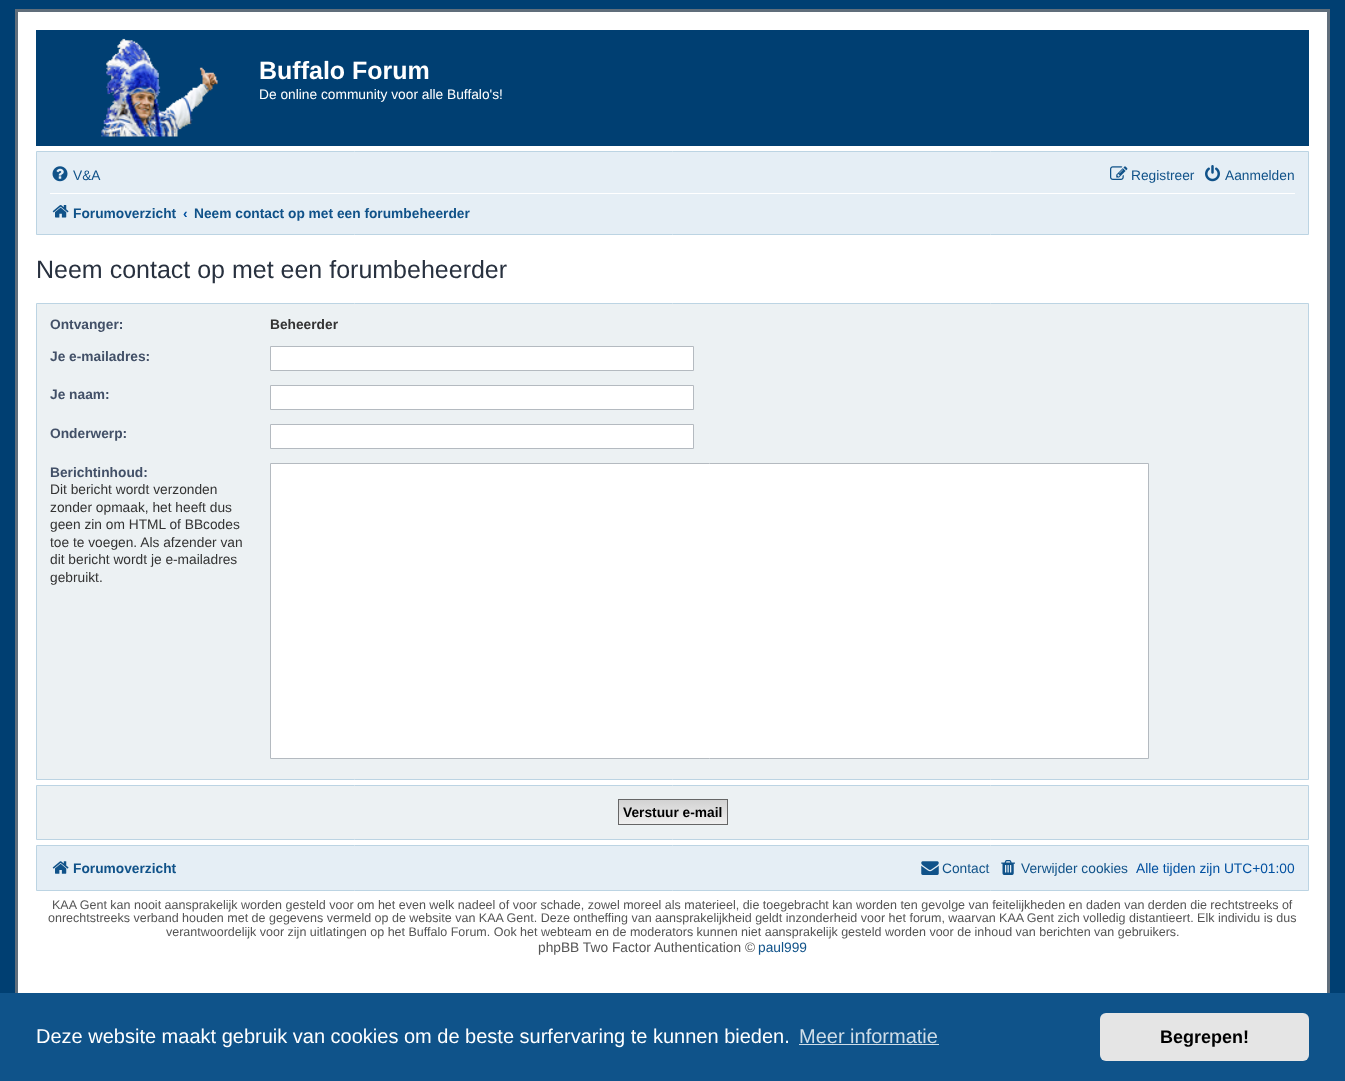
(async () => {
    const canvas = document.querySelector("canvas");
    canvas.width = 1345;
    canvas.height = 1081;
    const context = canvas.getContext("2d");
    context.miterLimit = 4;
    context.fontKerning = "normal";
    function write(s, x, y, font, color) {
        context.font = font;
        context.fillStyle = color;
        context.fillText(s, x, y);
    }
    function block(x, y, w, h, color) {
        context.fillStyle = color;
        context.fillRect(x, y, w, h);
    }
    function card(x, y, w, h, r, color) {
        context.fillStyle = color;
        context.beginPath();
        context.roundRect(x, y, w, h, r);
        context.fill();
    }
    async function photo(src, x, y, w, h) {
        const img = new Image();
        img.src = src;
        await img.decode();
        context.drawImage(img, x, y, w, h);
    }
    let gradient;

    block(0, 0, 1345, 1081, "rgb(0, 63, 114)");
    block(18, 12, 1309, 981, "rgb(255, 255, 255)");
    context.strokeStyle = "rgb(96, 110, 123)";
    context.lineWidth = 3;
    context.strokeRect(16.5, 10.5, 1312, 993);
    block(36, 30, 1273, 116, "rgb(0, 63, 114)");
    await photo("media/1.png", 101, 38, 117, 99);
    write("Buffalo Forum", 259, 79, "bold 25px Liberation Sans", "rgb(255, 255, 255)");
    write("De online community voor alle Buffalo's!", 259, 99, "13.75px Liberation Sans", "rgb(255, 255, 255)");
    context.fillStyle = "rgb(229, 238, 245)";
    context.beginPath();
    context.rect(36.5, 151.5, 1272, 83);
    context.fill();
    context.strokeStyle = "rgb(188, 212, 227)";
    context.lineWidth = 1;
    context.stroke();
    await photo("media/2.png", 52, 166, 16, 16);
    write("V&A", 73, 180, "13.75px Liberation Sans", "rgb(16, 82, 137)");
    await photo("media/3.png", 1110, 166, 18, 14);
    write("Registreer", 1131, 180, "13.75px Liberation Sans", "rgb(16, 82, 137)");
    await photo("media/4.png", 1205, 165, 15, 17);
    write("Aanmelden", 1225, 180, "13.75px Liberation Sans", "rgb(16, 82, 137)");
    block(50, 193, 1245, 1, "rgb(255, 255, 255)");
    await photo("media/5.png", 52, 205, 17, 13);
    write("Forumoverzicht", 73, 218, "bold 13.75px Liberation Sans", "rgb(16, 82, 137)");
    write("‹", 183, 218, "bold 13.75px Liberation Sans", "rgb(0, 80, 160)");
    write("Neem contact op met een forumbeheerder", 194, 218, "bold 13.75px Liberation Sans", "rgb(16, 82, 137)");
    write("Neem contact op met een forumbeheerder", 36, 278, "25px Liberation Sans", "rgb(40, 49, 63)");
    context.fillStyle = "rgb(236, 241, 243)";
    context.beginPath();
    context.rect(36.5, 303.5, 1272, 476);
    context.fill();
    context.stroke();
    write("Ontvanger:", 50, 329, "bold 13.75px Liberation Sans", "rgb(66, 80, 103)");
    write("Beheerder", 270, 329, "bold 13.75px Liberation Sans", "rgb(51, 51, 51)");
    write("Je e-mailadres:", 50, 361, "bold 13.75px Liberation Sans", "rgb(66, 80, 103)");
    context.fillStyle = "rgb(255, 255, 255)";
    context.beginPath();
    context.rect(270.5, 346.5, 423, 24);
    context.fill();
    context.strokeStyle = "rgb(180, 186, 192)";
    context.stroke();
    write("Je naam:", 50, 399, "bold 13.75px Liberation Sans", "rgb(66, 80, 103)");
    context.fillStyle = "rgb(255, 255, 255)";
    context.beginPath();
    context.rect(270.5, 385.5, 423, 24);
    context.fill();
    context.stroke();
    write("Onderwerp:", 50, 438, "bold 13.75px Liberation Sans", "rgb(66, 80, 103)");
    context.fillStyle = "rgb(255, 255, 255)";
    context.beginPath();
    context.rect(270.5, 424.5, 423, 24);
    context.fill();
    context.stroke();
    write("Berichtinhoud:", 50, 477, "bold 13.75px Liberation Sans", "rgb(66, 80, 103)");
    write("Dit bericht wordt verzonden", 50, 494, "13.75px Liberation Sans", "rgb(51, 51, 51)");
    write("zonder opmaak, het heeft dus", 50, 512, "13.75px Liberation Sans", "rgb(51, 51, 51)");
    write("geen zin om HTML of BBcodes", 50, 529, "13.75px Liberation Sans", "rgb(51, 51, 51)");
    write("toe te voegen. Als afzender van", 50, 547, "13.75px Liberation Sans", "rgb(51, 51, 51)");
    write("dit bericht wordt je e-mailadres", 50, 564, "13.75px Liberation Sans", "rgb(51, 51, 51)");
    write("gebruikt.", 50, 582, "13.75px Liberation Sans", "rgb(51, 51, 51)");
    context.fillStyle = "rgb(255, 255, 255)";
    context.beginPath();
    context.rect(270.5, 463.5, 878, 295);
    context.fill();
    context.stroke();
    context.fillStyle = "rgb(236, 241, 243)";
    context.beginPath();
    context.rect(36.5, 785.5, 1272, 54);
    context.fill();
    context.strokeStyle = "rgb(188, 212, 227)";
    context.stroke();
    gradient = context.createLinearGradient(673, 800, 673, 824);
    gradient.addColorStop(0, "rgb(210, 210, 210)");
    gradient.addColorStop(1, "rgb(239, 239, 239)");
    context.fillStyle = gradient;
    context.fillRect(619, 800, 108, 24);
    context.strokeStyle = "rgb(102, 102, 102)";
    context.strokeRect(618.5, 799.5, 109, 25);
    write("Verstuur e-mail", 623, 817, "bold 13.75px Liberation Sans", "rgb(0, 0, 0)");
    context.fillStyle = "rgb(229, 238, 245)";
    context.beginPath();
    context.rect(36.5, 845.5, 1272, 45);
    context.fill();
    context.strokeStyle = "rgb(188, 212, 227)";
    context.stroke();
    await photo("media/6.png", 52, 861, 17, 13);
    write("Forumoverzicht", 73, 873, "bold 13.75px Liberation Sans", "rgb(16, 82, 137)");
    await photo("media/7.png", 921, 861, 18, 14);
    write("Contact", 942, 873, "13.75px Liberation Sans", "rgb(16, 82, 137)");
    await photo("media/8.png", 1001, 860, 14, 15);
    write("Verwijder cookies", 1021, 873, "13.75px Liberation Sans", "rgb(16, 82, 137)");
    write("Alle tijden zijn UTC+01:00", 1136, 873, "13.75px Liberation Sans", "rgb(0, 80, 160)");
    write("KAA Gent kan nooit aansprakelijk worden gesteld voor om het even welk nadeel of voor schade, zowel moreel als materieel, die toegebracht kan worden ten gevolge van feitelijkheden en daden van derden die rechtstreeks of", 52, 909, "12.5px Liberation Sans", "rgb(85, 85, 85)");
    write("onrechtstreeks verband houden met de gegevens vermeld op de website van KAA Gent. Deze ontheffing van aansprakelijkheid geldt inzonderheid voor het forum, waarvan KAA Gent zich volledig distantieert. Elk individu is dus", 48, 922, "12.5px Liberation Sans", "rgb(85, 85, 85)");
    write("verantwoordelijk voor zijn uitlatingen op het Buffalo Forum. Ook het webteam en de moderators kunnen niet aansprakelijk gesteld worden voor de inhoud van berichten van gebruikers.", 166, 936, "12.5px Liberation Sans", "rgb(85, 85, 85)");
    write("phpBB Two Factor Authentication ©", 538, 952, "13.75px Liberation Sans", "rgb(85, 85, 85)");
    write("paul999", 758, 952, "13.75px Liberation Sans", "rgb(16, 82, 137)");
    block(0, 993, 1345, 88, "rgb(15, 83, 138)");
    write("Deze website maakt gebruik van cookies om de beste surfervaring te kunnen bieden.", 36, 1043, "20px Liberation Sans", "rgb(255, 255, 255)");
    write("Meer informatie", 799, 1043, "20px Liberation Sans", "rgb(207, 221, 232)");
    block(799, 1044, 140, 1, "rgb(207, 221, 232)");
    card(1100, 1013, 209, 48, 6, "rgb(229, 229, 229)");
    write("Begrepen!", 1160, 1043, "bold 18px Liberation Sans", "rgb(0, 0, 0)");
})();
